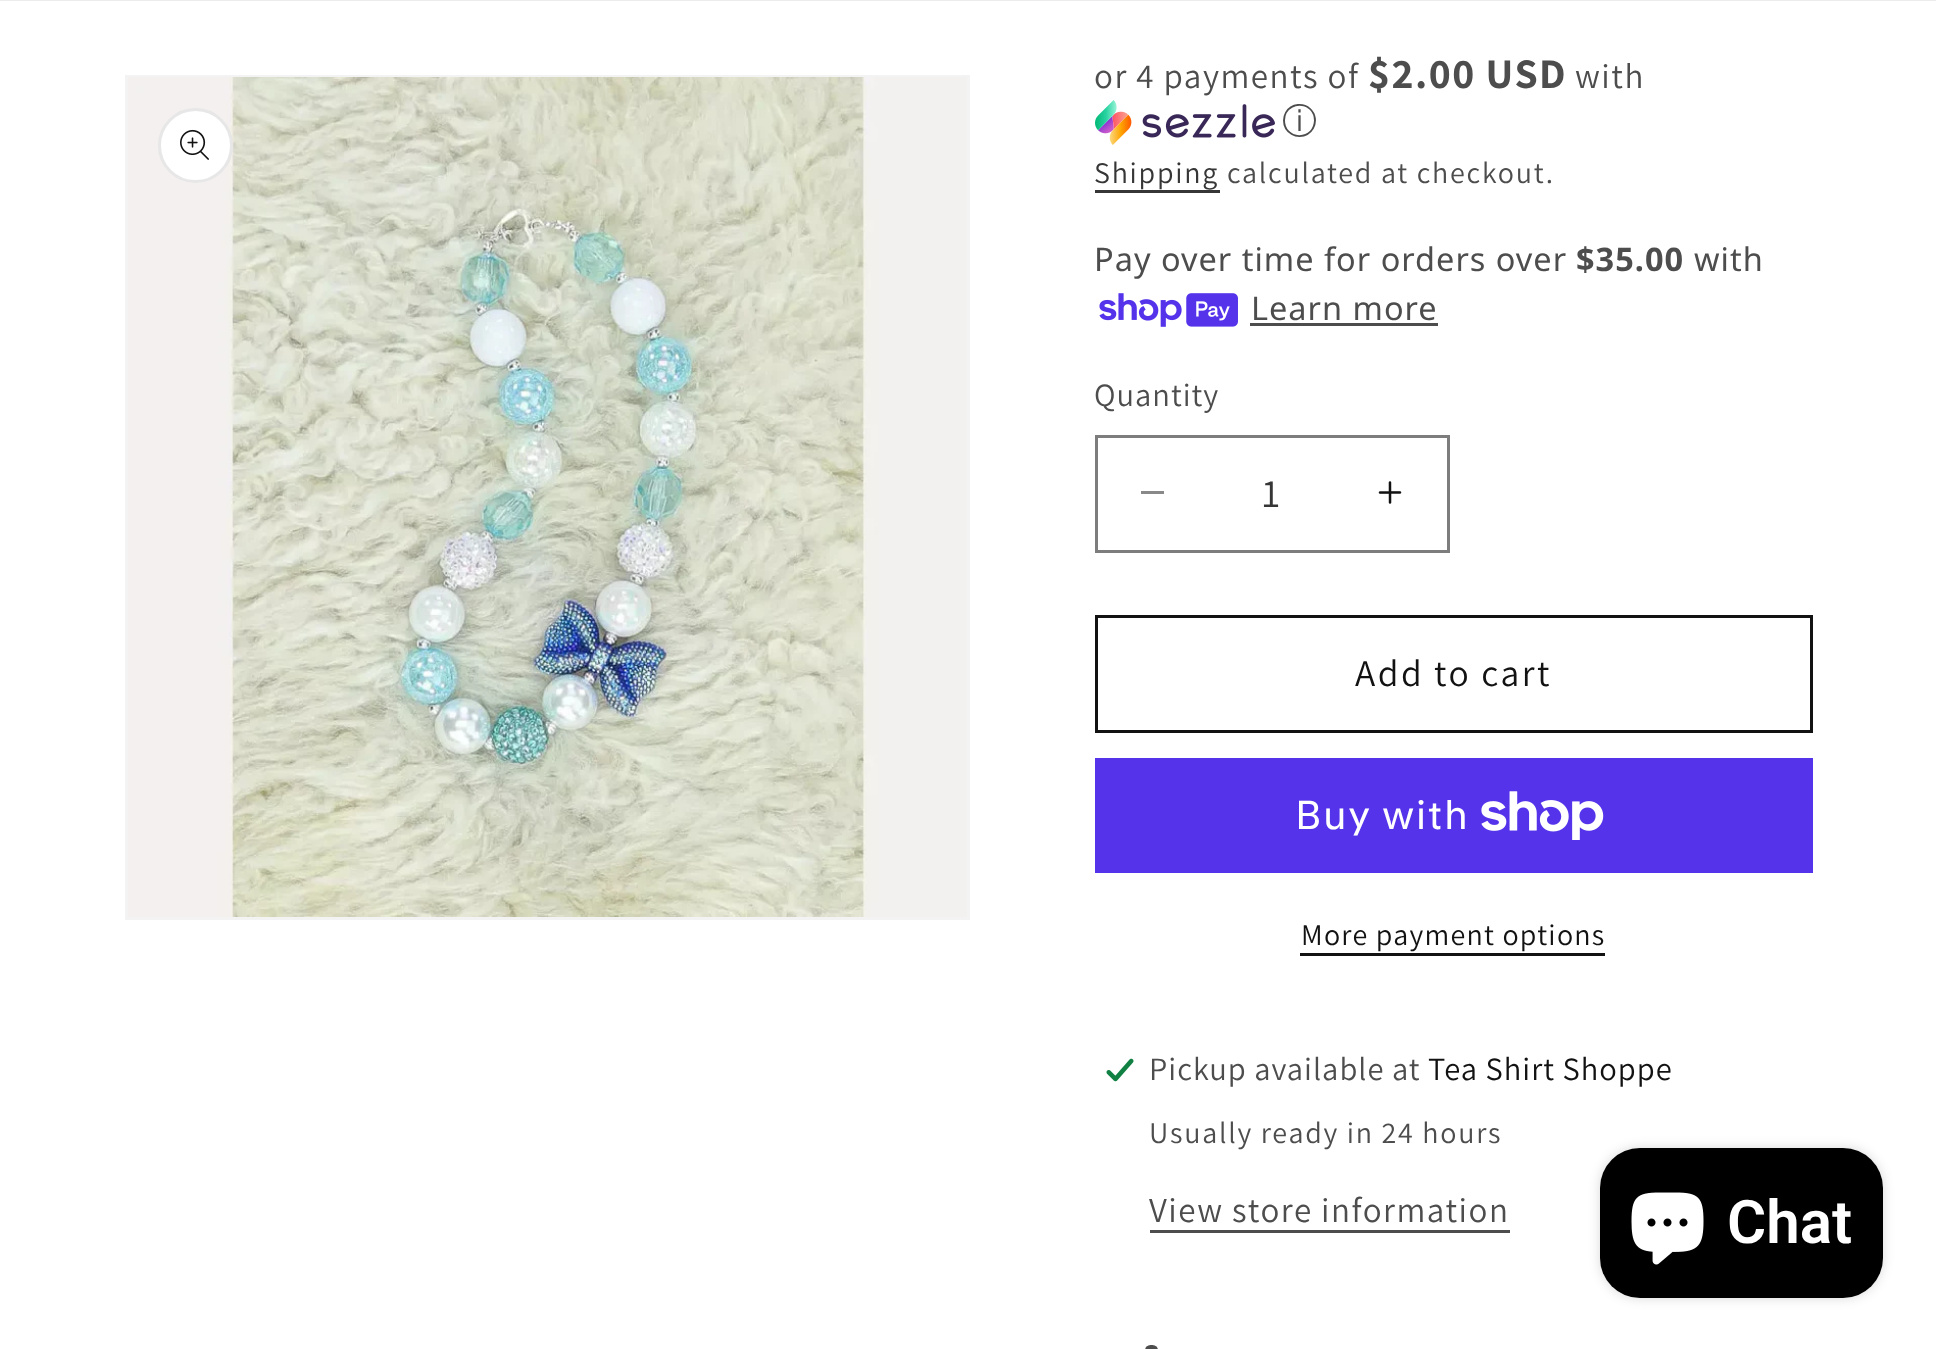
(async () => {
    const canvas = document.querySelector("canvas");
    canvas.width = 1936;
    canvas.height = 1349;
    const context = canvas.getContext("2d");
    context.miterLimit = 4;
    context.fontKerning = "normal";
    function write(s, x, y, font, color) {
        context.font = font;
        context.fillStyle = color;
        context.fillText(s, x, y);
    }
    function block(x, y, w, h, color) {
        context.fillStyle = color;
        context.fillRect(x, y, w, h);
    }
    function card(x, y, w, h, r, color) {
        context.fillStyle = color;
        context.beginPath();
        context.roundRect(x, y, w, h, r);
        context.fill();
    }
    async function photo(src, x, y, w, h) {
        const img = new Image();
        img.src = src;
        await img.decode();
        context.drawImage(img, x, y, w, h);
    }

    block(0, 0, 1936, 1349, "rgb(255, 255, 255)");
    block(0, 0, 1936, 1, "rgb(236, 236, 236)");
    context.strokeStyle = "rgb(243, 243, 243)";
    context.lineWidth = 3;
    context.strokeRect(126.5, 76.5, 842, 842);
    await photo("media/1.png", 128, 77, 839, 840);
    context.fillStyle = "rgb(255, 255, 255)";
    context.beginPath();
    context.arc(195.5, 145.5, 37.5, 0, Math.PI * 2);
    context.fill();
    context.beginPath();
    context.arc(195.5, 145.5, 36, 0, Math.PI * 2);
    context.strokeStyle = "rgba(18, 18, 18, 0.1)";
    context.stroke();
    await photo("media/2.png", 180, 129, 29, 31);
    context.letterSpacing = "1.5px";
    write("or 4 payments of", 1094, 88, "35px Assistant", "rgb(77, 77, 77)");
    write("$2.00 USD", 1368, 88, "bold 42px Assistant", "rgb(77, 77, 77)");
    write("with", 1575, 88, "35px Assistant", "rgb(77, 77, 77)");
    await photo("media/3.png", 1095, 100, 180, 45);
    write("ⓘ", 1282, 133, "500 35px WenQuanYi Zen Hei", "rgb(77, 77, 77)");
    context.letterSpacing = "1.75px";
    write("Shipping", 1094, 183, "30px Assistant", "rgb(54, 54, 54)");
    block(1095, 190, 125, 3, "rgb(54, 54, 54)");
    write("calculated at checkout.", 1227, 183, "30px Assistant", "rgb(77, 77, 77)");
    context.letterSpacing = "1px";
    write("Pay over time for orders over", 1094, 271, "32.5px Noto Sans", "rgb(77, 77, 77)");
    write("$35.00", 1576, 271, "bold 32.5px Noto Sans", "rgb(77, 77, 77)");
    write("with", 1694, 271, "32.5px Noto Sans", "rgb(77, 77, 77)");
    await photo("media/4.png", 1099, 293, 139, 34);
    write("Learn more", 1251, 320, "32.5px Noto Sans", "rgb(77, 77, 77)");
    block(1250, 323, 188, 3, "rgb(77, 77, 77)");
    write("Quantity", 1094, 406, "32.5px Assistant", "rgb(77, 77, 77)");
    block(1141, 491, 23, 3, "rgb(137, 137, 137)");
    await photo("media/5.png", 1378, 481, 24, 23);
    context.strokeStyle = "rgb(125, 125, 125)";
    context.strokeRect(1096.5, 436.5, 352, 115);
    context.letterSpacing = "0px";
    write("1", 1262, 507, "40px Assistant", "rgb(54, 54, 54)");
    context.strokeStyle = "rgb(18, 18, 18)";
    context.strokeRect(1096.5, 616.5, 715, 115);
    context.letterSpacing = "2.5px";
    write("Add to cart", 1355, 686, "37.5px Assistant", "rgb(18, 18, 18)");
    block(1095, 758, 718, 115, "rgb(84, 51, 235)");
    context.letterSpacing = "1.5px";
    write("Buy with", 1295, 829, "40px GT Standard", "rgb(255, 255, 255)");
    await photo("media/6.png", 1481, 791, 123, 49);
    context.letterSpacing = "1.25px";
    write("More payment options", 1301, 945, "30px Assistant", "rgb(18, 18, 18)");
    block(1300, 953, 305, 3, "rgb(18, 18, 18)");
    await photo("media/7.png", 1106, 1058, 28, 24);
    context.letterSpacing = "1px";
    write("Pickup available at", 1149, 1080, "32.5px Assistant", "rgb(77, 77, 77)");
    write("Tea Shirt Shoppe", 1428, 1080, "32.5px Assistant", "rgb(18, 18, 18)");
    context.letterSpacing = "1.75px";
    write("Usually ready in 24 hours", 1149, 1143, "30px Assistant", "rgb(77, 77, 77)");
    context.letterSpacing = "1.5px";
    write("View store information", 1149, 1222, "35px Assistant", "rgb(77, 77, 77)");
    block(1150, 1230, 360, 3, "rgb(77, 77, 77)");
    card(1145, 1345, 13, 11, 6.5, "rgb(77, 77, 77)");
    context.fillStyle = "rgba(0, 0, 0, 0.15)";
    context.filter = "blur(6px)";
    context.beginPath();
    context.roundRect(1600, 1148, 283, 150, 40);
    context.fill();
    context.filter = "none";
    card(1600, 1148, 283, 150, 40, "rgb(0, 0, 0)");
    await photo("media/8.png", 1631, 1192, 73, 73);
    context.letterSpacing = "0px";
    write("Chat", 1727, 1243, "600 60px Roboto", "rgb(255, 255, 255)");
})();
